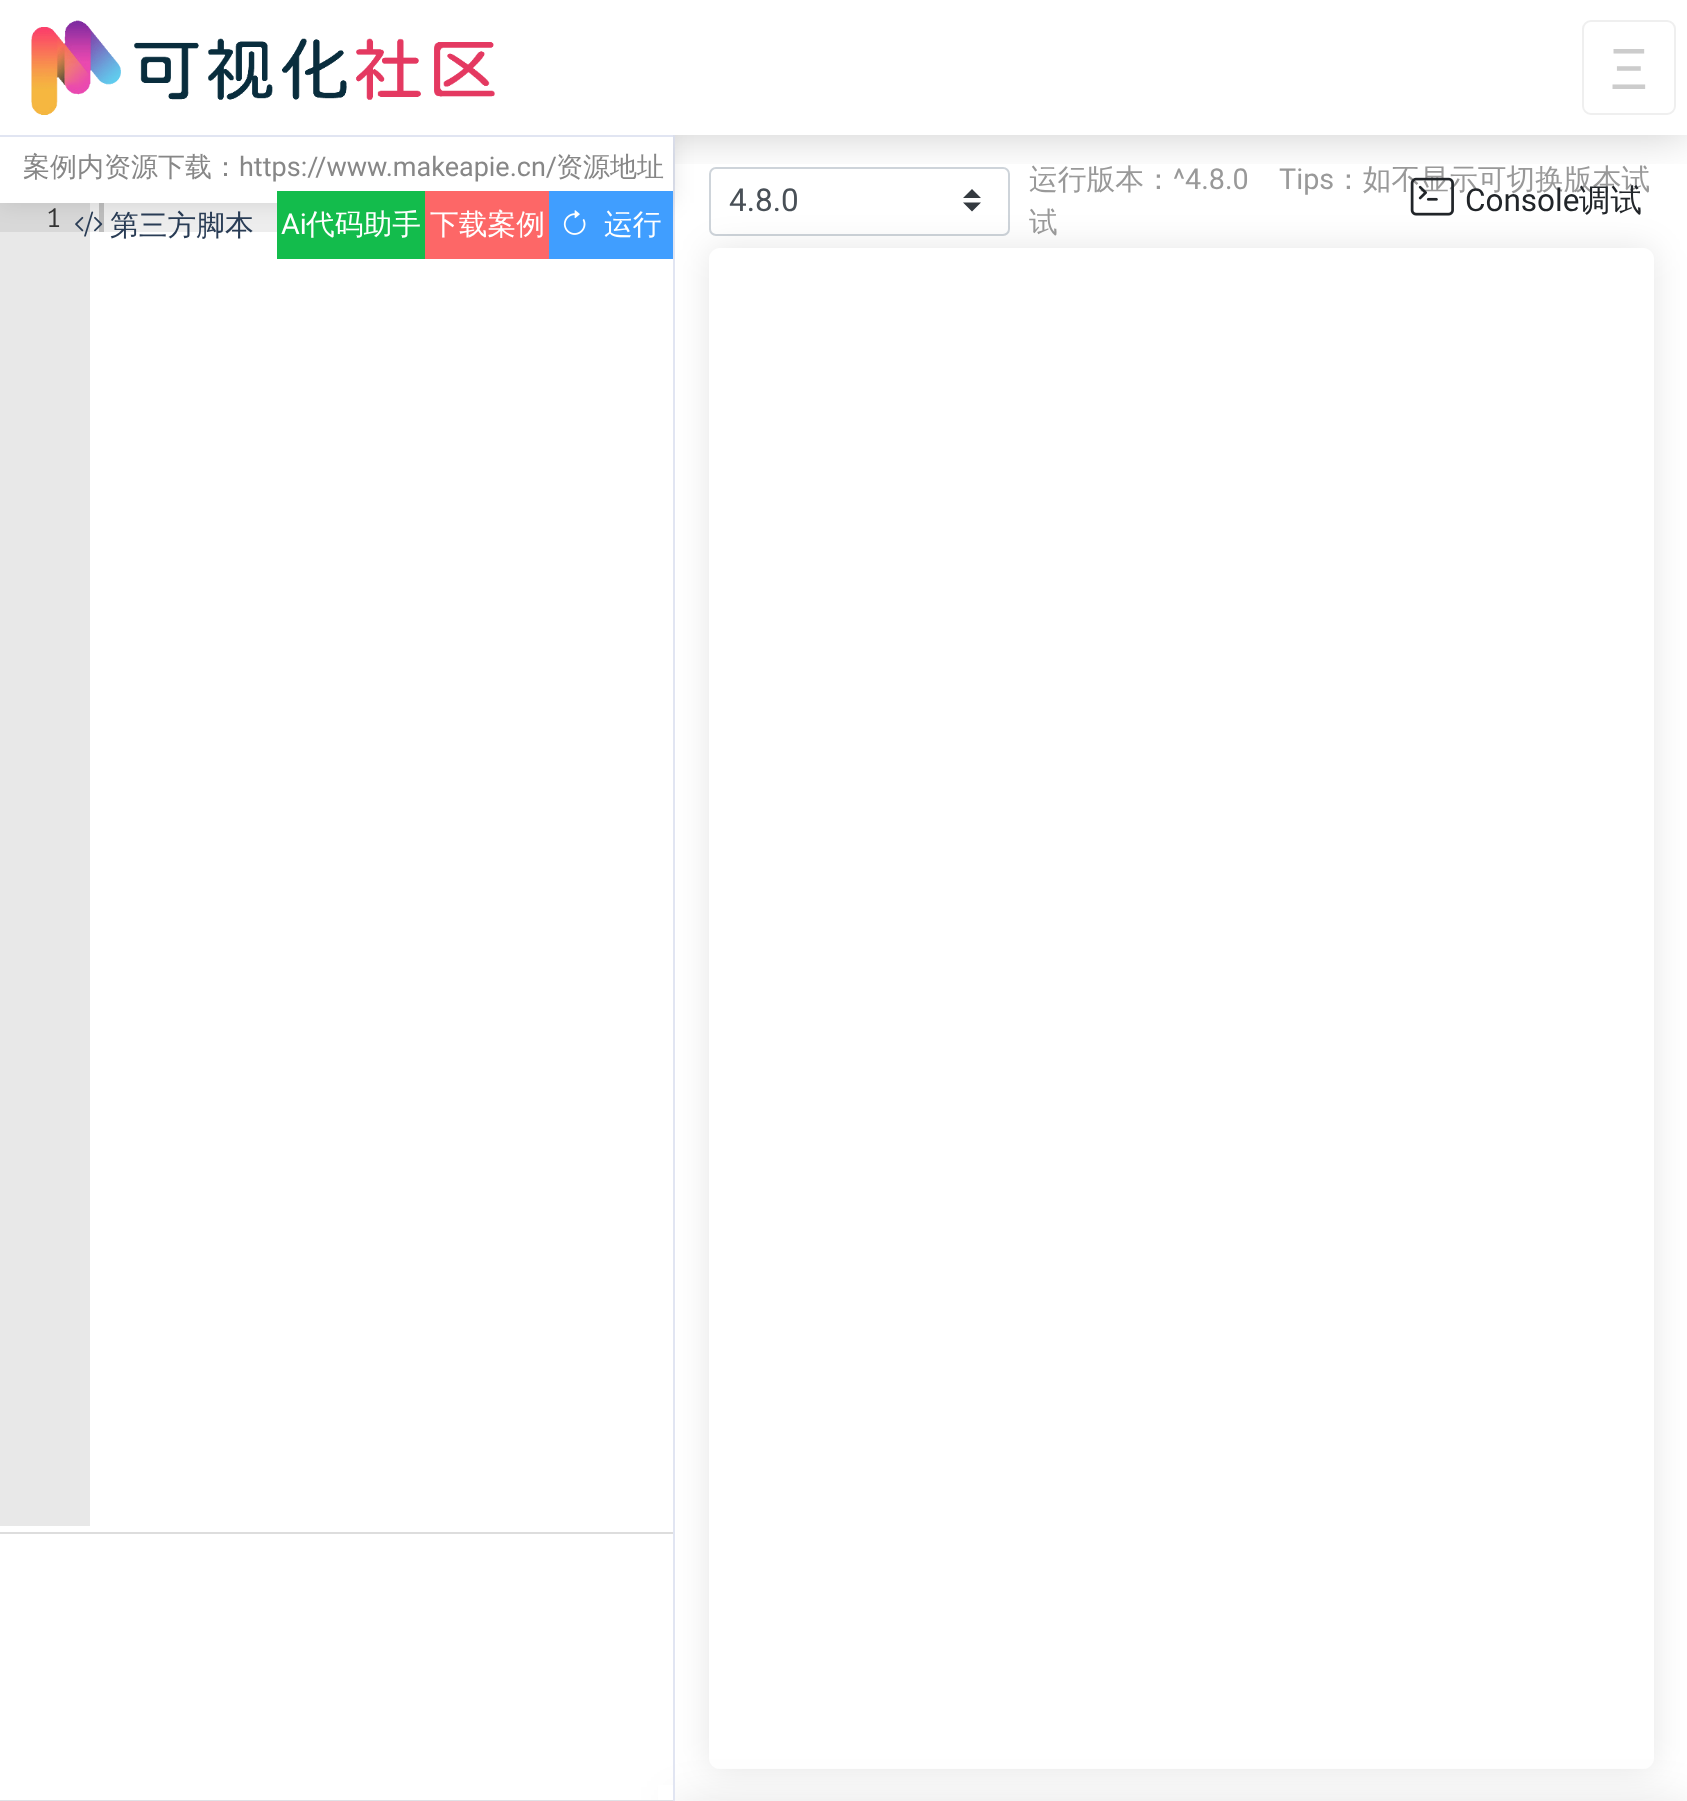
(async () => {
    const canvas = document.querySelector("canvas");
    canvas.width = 1687;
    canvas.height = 1801;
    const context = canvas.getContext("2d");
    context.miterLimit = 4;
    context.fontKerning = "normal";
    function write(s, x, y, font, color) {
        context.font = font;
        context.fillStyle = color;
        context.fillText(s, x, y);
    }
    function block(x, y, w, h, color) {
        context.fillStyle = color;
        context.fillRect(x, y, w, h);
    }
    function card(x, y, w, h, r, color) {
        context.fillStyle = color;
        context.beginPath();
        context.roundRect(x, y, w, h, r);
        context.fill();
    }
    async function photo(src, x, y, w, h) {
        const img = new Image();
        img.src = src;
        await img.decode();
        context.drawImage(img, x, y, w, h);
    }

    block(0, 0, 1687, 1801, "rgb(255, 255, 255)");
    context.save();
    context.beginPath();
    context.rect(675, 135, 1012, 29);
    context.clip();
    context.fillStyle = "rgba(0, 0, 0, 0.2)";
    context.filter = "blur(22.5px)";
    context.beginPath();
    context.rect(0, 0, 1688, 135);
    context.fill();
    context.filter = "none";
    context.restore();
    await photo("media/1.png", 31, 20, 464, 95);
    context.beginPath();
    context.roundRect(1583, 21, 92, 93, 8);
    context.strokeStyle = "rgb(239, 239, 239)";
    context.lineWidth = 2;
    context.stroke();
    write("Ξ", 1610, 89, "58px Liberation Sans", "rgb(204, 204, 204)");
    card(709, 167, 301, 69, 7, "rgb(255, 255, 255)");
    context.fillStyle = "rgb(52, 58, 64)";
    context.beginPath();
    context.moveTo(972, 189);
    context.lineTo(963, 198);
    context.lineTo(981, 198);
    context.closePath();
    context.moveTo(972, 211.5);
    context.lineTo(963, 202.5);
    context.lineTo(981, 202.5);
    context.closePath();
    context.fill();
    context.beginPath();
    context.roundRect(710, 168, 299, 67, 6);
    context.strokeStyle = "rgb(206, 212, 218)";
    context.stroke();
    write("：如不显示可切换版本试", 1334, 189, "500 28.75px WenQuanYi Zen Hei", "rgb(153, 153, 153)");
    await photo("media/4.png", 1410, 177, 44, 39);
    context.save();
    context.beginPath();
    context.moveTo(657, 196);
    context.lineTo(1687, 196);
    context.lineTo(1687, 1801);
    context.lineTo(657, 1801);
    context.closePath();
    context.moveTo(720, 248);
    context.lineTo(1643, 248);
    context.bezierCurveTo(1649, 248, 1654, 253, 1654, 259);
    context.lineTo(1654, 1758);
    context.bezierCurveTo(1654, 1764, 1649, 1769, 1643, 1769);
    context.lineTo(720, 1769);
    context.bezierCurveTo(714, 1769, 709, 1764, 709, 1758);
    context.lineTo(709, 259);
    context.bezierCurveTo(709, 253, 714, 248, 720, 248);
    context.closePath();
    context.clip("evenodd");
    context.fillStyle = "rgba(0, 0, 0, 0.1)";
    context.filter = "blur(17px)";
    context.beginPath();
    context.roundRect(709, 248, 945, 1521, 11);
    context.fill();
    context.filter = "none";
    context.restore();
    context.fillStyle = "rgba(0, 0, 0, 0.1)";
    context.filter = "blur(22.5px)";
    context.beginPath();
    context.rect(675, 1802, 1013, 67);
    context.fill();
    context.filter = "none";
    block(673, 135, 2, 1666, "rgb(225, 229, 242)");
    block(0, 232, 90, 1294, "rgb(232, 232, 232)");
    block(0, 203, 90, 29, "rgb(216, 216, 216)");
    block(90, 203, 187, 29, "rgb(237, 237, 237)");
    block(99, 203, 5, 29, "rgb(190, 190, 190)");
    context.save();
    context.beginPath();
    context.rect(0, 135, 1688, 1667);
    context.clip();
    context.fillStyle = "rgba(0, 0, 0, 0.1)";
    context.filter = "blur(11px)";
    context.beginPath();
    context.rect(0, 135, 673, 68);
    context.fill();
    context.filter = "none";
    context.restore();
    block(0, 137, 673, 66, "rgb(255, 255, 255)");
    block(0, 135, 673, 2, "rgb(225, 229, 242)");
    write("案例内资源下载：", 23, 176, "500 27px WenQuanYi Zen Hei", "rgb(135, 135, 135)");
    write("https://www.makeapie.cn/", 239, 176, "27px Roboto", "rgb(135, 135, 135)");
    write("资源地址", 556, 176, "500 27px WenQuanYi Zen Hei", "rgb(135, 135, 135)");
    await photo("media/2.png", 75, 211, 28, 26);
    write("第三方脚本", 110, 235, "500 28.75px WenQuanYi Zen Hei", "rgb(41, 60, 85)");
    block(277, 191, 148, 68, "rgb(19, 188, 76)");
    write("Ai", 281, 234, "28.75px Roboto", "rgb(255, 255, 255)");
    write("代码助手", 306, 234, "500 28.75px WenQuanYi Zen Hei", "rgb(255, 255, 255)");
    block(425, 191, 124, 68, "rgb(253, 103, 103)");
    write("下载案例", 430, 234, "500 28.75px WenQuanYi Zen Hei", "rgb(255, 255, 255)");
    block(549, 191, 124, 68, "rgb(64, 158, 255)");
    await photo("media/3.png", 563, 210, 23, 25);
    write("运行", 604, 234, "500 28.75px WenQuanYi Zen Hei", "rgb(255, 255, 255)");
    write("1", 46, 227, "27px Ubuntu Mono", "rgb(51, 51, 51)");
    block(658, 1785, 15, 15, "rgb(255, 255, 255)");
    block(0, 1532, 673, 2, "rgb(221, 221, 221)");
    block(0, 1800, 673, 1, "rgb(222, 226, 230)");
    write("运行版本：", 1029, 189, "500 28.75px WenQuanYi Zen Hei", "rgb(153, 153, 153)");
    write("^4.8.0", 1173, 189, "28.75px Roboto", "rgb(153, 153, 153)");
    write("Tips", 1279, 189, "28.75px Roboto", "rgb(153, 153, 153)");
    write("试", 1029, 232, "500 28.75px WenQuanYi Zen Hei", "rgb(153, 153, 153)");
    write("4.8.0", 729, 211, "31.5px Roboto", "rgb(73, 80, 87)");
    write("Console", 1465, 211, "31.5px Roboto", "rgb(33, 37, 41)");
    write("调试", 1579, 211, "500 31.5px WenQuanYi Zen Hei", "rgb(33, 37, 41)");
})();
